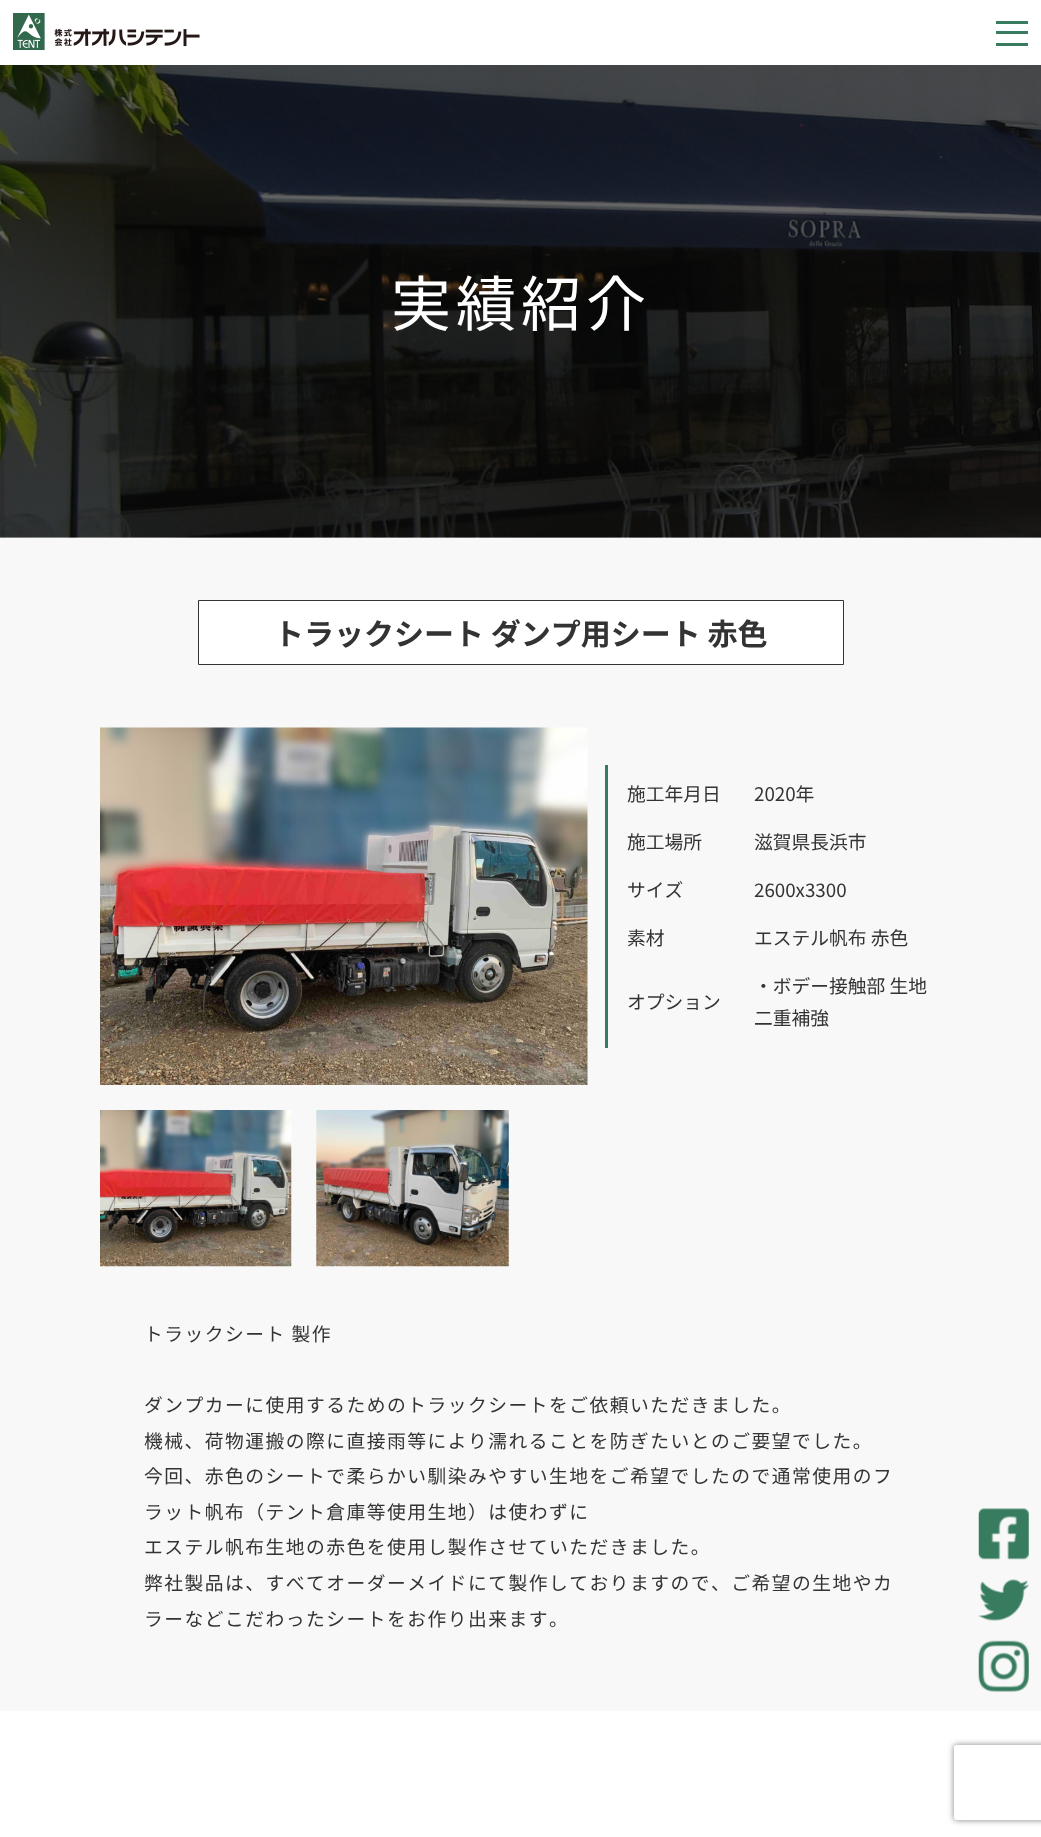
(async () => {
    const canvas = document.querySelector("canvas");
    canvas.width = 1041;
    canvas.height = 1837;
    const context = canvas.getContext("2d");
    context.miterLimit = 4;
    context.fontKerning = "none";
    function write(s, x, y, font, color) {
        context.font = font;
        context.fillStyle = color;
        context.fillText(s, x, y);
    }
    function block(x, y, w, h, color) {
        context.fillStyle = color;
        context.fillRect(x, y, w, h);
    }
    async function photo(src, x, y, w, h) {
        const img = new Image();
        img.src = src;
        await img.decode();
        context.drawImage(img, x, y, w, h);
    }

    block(0, 0, 1041, 1837, "rgb(255, 255, 255)");
    await photo("media/1.png", 13, 13, 187, 37);
    block(996, 21, 32, 3, "rgb(56, 124, 95)");
    block(996, 31, 32, 3, "rgb(56, 124, 95)");
    block(996, 43, 32, 3, "rgb(56, 124, 95)");
    await photo("media/2.png", 0, 65, 1041, 473);
    context.letterSpacing = "5px";
    write("実績紹介", 391, 326, "60px Noto Sans JP", "rgb(255, 255, 255)");
    block(0, 538, 1041, 1173, "rgb(248, 248, 248)");
    context.fillStyle = "rgb(255, 255, 255)";
    context.beginPath();
    context.rect(198.5, 600.5, 645, 64);
    context.fill();
    context.strokeStyle = "rgb(51, 51, 51)";
    context.stroke();
    context.letterSpacing = "0px";
    write("トラックシート ダンプ用シート 赤色", 274, 645, "bold 30px Noto Sans JP", "rgb(51, 51, 51)");
    await photo("media/3.png", 100, 727, 488, 358);
    block(605, 765, 3, 283, "rgb(56, 124, 95)");
    write("施工年月日", 627, 801, "18.75px Noto Sans JP", "rgb(51, 51, 51)");
    write("2020年", 754, 801, "18.75px Noto Sans JP", "rgb(51, 51, 51)");
    write("施工場所", 627, 849, "18.75px Noto Sans JP", "rgb(51, 51, 51)");
    write("滋賀県長浜市", 754, 849, "18.75px Noto Sans JP", "rgb(51, 51, 51)");
    write("サイズ", 627, 897, "18.75px Noto Sans JP", "rgb(51, 51, 51)");
    write("2600x3300", 754, 897, "18.75px Noto Sans JP", "rgb(51, 51, 51)");
    write("素材", 627, 945, "18.75px Noto Sans JP", "rgb(51, 51, 51)");
    write("エステル帆布 赤色", 754, 945, "18.75px Noto Sans JP", "rgb(51, 51, 51)");
    write("オプション", 627, 1009, "18.75px Noto Sans JP", "rgb(51, 51, 51)");
    write("・ボデー接触部 生地", 754, 993, "18.75px Noto Sans JP", "rgb(51, 51, 51)");
    write("二重補強", 754, 1025, "18.75px Noto Sans JP", "rgb(51, 51, 51)");
    await photo("media/4.png", 100, 1110, 192, 157);
    await photo("media/5.png", 316, 1110, 193, 157);
    context.letterSpacing = "1.5px";
    write("トラックシート 製作", 144, 1341, "18.75px Noto Sans JP", "rgb(51, 51, 51)");
    write("ダンプカーに使用するためのトラックシートをご依頼いただきました。", 144, 1412, "18.75px Noto Sans JP", "rgb(51, 51, 51)");
    write("機械、荷物運搬の際に直接雨等により濡れることを防ぎたいとのご要望でした。", 144, 1448, "18.75px Noto Sans JP", "rgb(51, 51, 51)");
    write("今回、赤色のシートで柔らかい馴染みやすい生地をご希望でしたので通常使用のフ", 144, 1483, "18.75px Noto Sans JP", "rgb(51, 51, 51)");
    write("ラット帆布（テント倉庫等使用生地）は使わずに", 144, 1519, "18.75px Noto Sans JP", "rgb(51, 51, 51)");
    write("エステル帆布生地の赤色を使用し製作させていただきました。", 144, 1554, "18.75px Noto Sans JP", "rgb(51, 51, 51)");
    write("弊社製品は、すべてオーダーメイドにて製作しておりますので", 144, 1590, "18.75px Noto Sans JP", "rgb(51, 51, 51)");
    write("、ご希望の生地やカ", 711, 1590, "18.75px Noto Sans JP", "rgb(51, 51, 51)");
    write("ラーなどこだわったシートをお作り出来ます。", 144, 1626, "18.75px Noto Sans JP", "rgb(51, 51, 51)");
    await photo("media/6.png", 978, 1508, 51, 52);
    await photo("media/7.png", 978, 1579, 51, 42);
    await photo("media/8.png", 978, 1640, 51, 52);
    context.save();
    context.beginPath();
    context.moveTo(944, 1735);
    context.lineTo(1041, 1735);
    context.lineTo(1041, 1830);
    context.lineTo(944, 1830);
    context.closePath();
    context.moveTo(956.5, 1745);
    context.lineTo(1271.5, 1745);
    context.bezierCurveTo(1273, 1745, 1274, 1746, 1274, 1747.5);
    context.lineTo(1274, 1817.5);
    context.bezierCurveTo(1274, 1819, 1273, 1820, 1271.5, 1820);
    context.lineTo(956.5, 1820);
    context.bezierCurveTo(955, 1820, 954, 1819, 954, 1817.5);
    context.lineTo(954, 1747.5);
    context.bezierCurveTo(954, 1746, 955, 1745, 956.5, 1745);
    context.closePath();
    context.clip("evenodd");
    context.fillStyle = "rgb(128, 128, 128)";
    context.filter = "blur(3px)";
    context.beginPath();
    context.roundRect(954, 1745, 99, 75, 2.5);
    context.fill();
    context.filter = "none";
    context.restore();
})();
